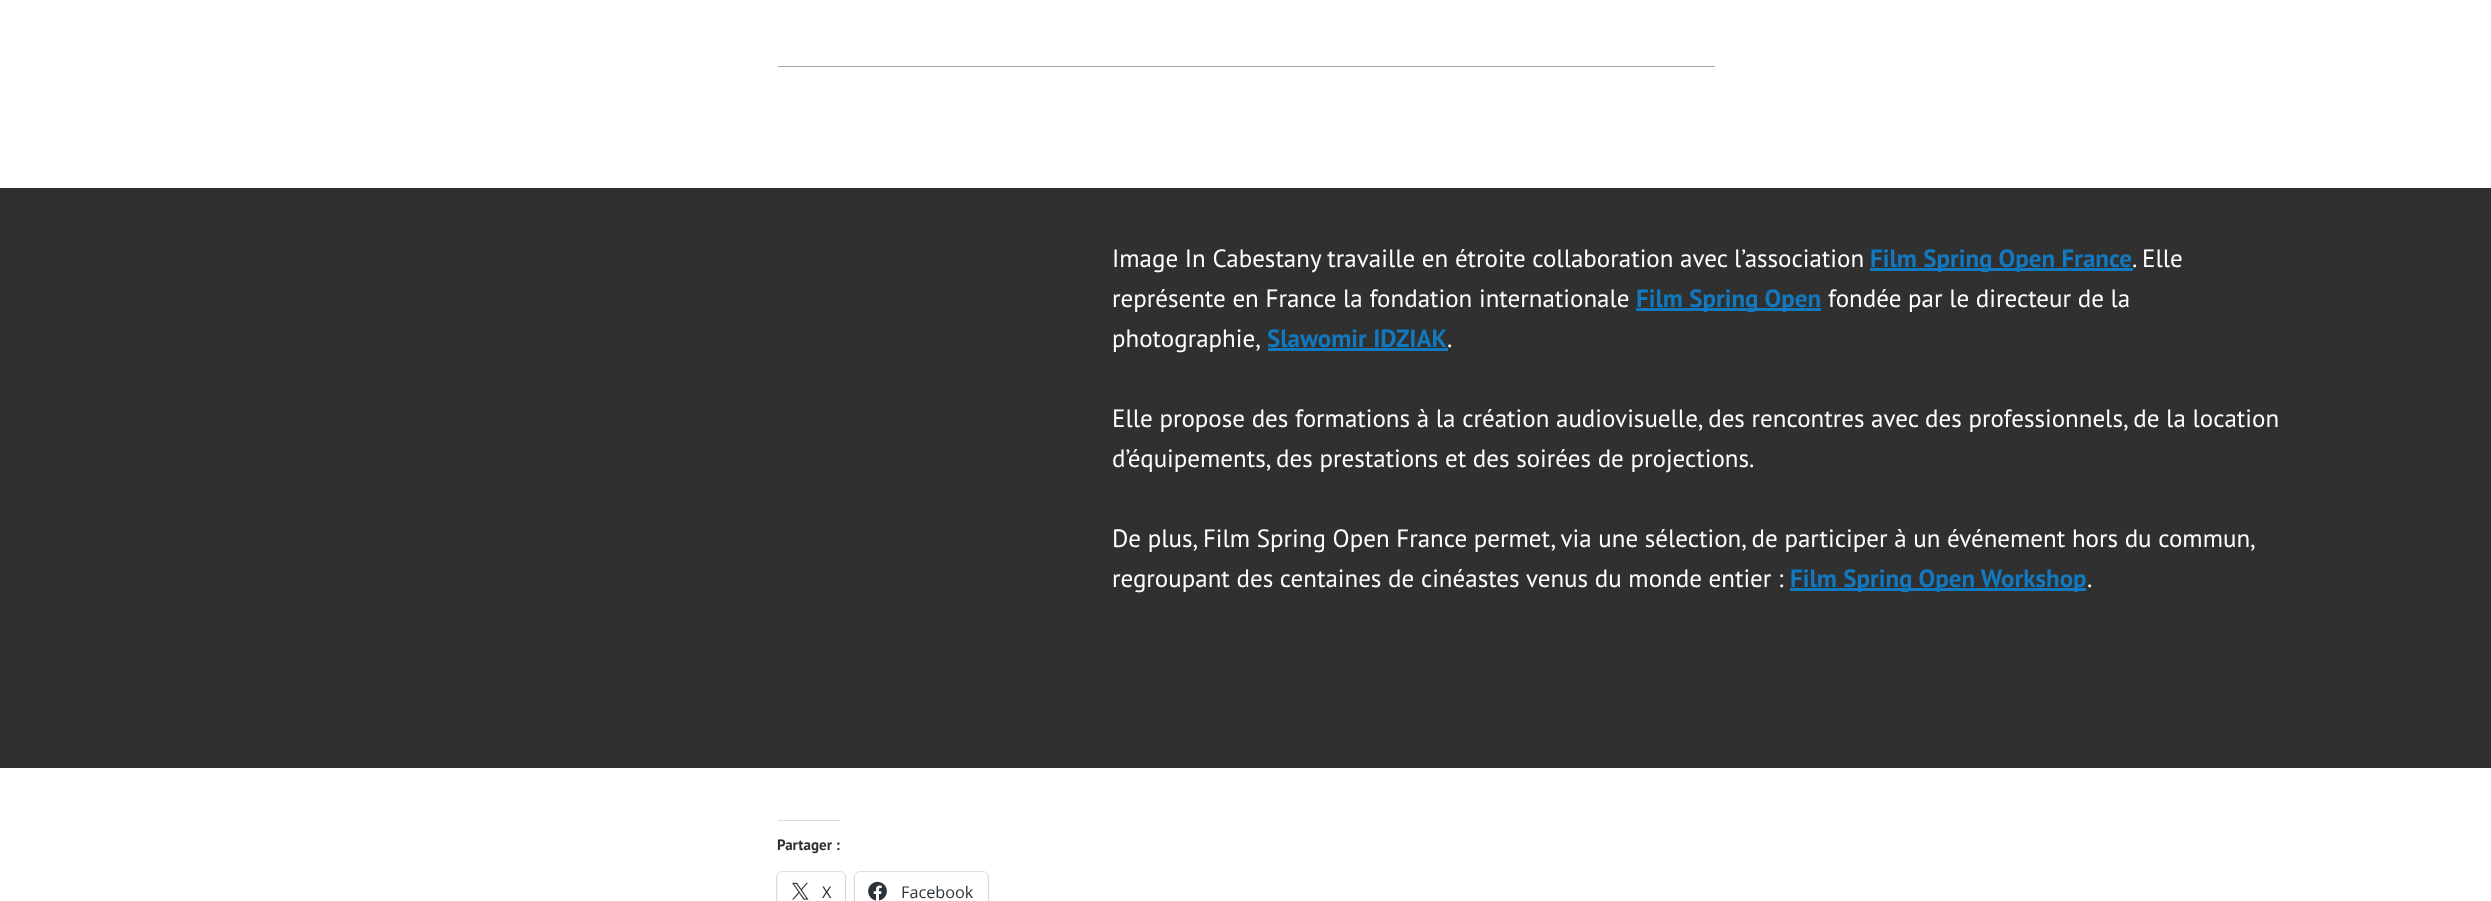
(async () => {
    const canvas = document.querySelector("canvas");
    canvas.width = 2491;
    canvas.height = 901;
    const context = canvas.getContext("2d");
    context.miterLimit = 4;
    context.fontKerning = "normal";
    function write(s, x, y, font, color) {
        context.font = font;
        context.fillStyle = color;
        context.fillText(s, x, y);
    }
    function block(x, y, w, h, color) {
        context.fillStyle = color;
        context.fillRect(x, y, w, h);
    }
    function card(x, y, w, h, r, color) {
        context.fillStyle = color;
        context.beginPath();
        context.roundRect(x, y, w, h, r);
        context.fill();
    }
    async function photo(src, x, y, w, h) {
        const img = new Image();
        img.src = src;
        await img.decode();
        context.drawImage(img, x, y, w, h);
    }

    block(0, 0, 2491, 901, "rgb(255, 255, 255)");
    block(778, 66, 937, 1, "rgb(165, 165, 165)");
    block(0, 188, 2491, 580, "rgb(48, 48, 48)");
    write("Image In Cabestany travaille en étroite collaboration avec l’association", 1112, 267, "25px PT Sans", "rgb(255, 255, 255)");
    block(1870, 268, 263, 3, "rgb(18, 121, 190)");
    write("Film Spring Open France", 1870, 267, "bold 25px PT Sans", "rgb(18, 121, 190)");
    write(". Elle", 2132, 267, "25px PT Sans", "rgb(255, 255, 255)");
    write("représente en France la fondation internationale", 1112, 307, "25px PT Sans", "rgb(255, 255, 255)");
    block(1636, 308, 185, 3, "rgb(18, 121, 190)");
    write("Film Spring Open", 1636, 307, "bold 25px PT Sans", "rgb(18, 121, 190)");
    write("fondée par le directeur de la", 1828, 307, "25px PT Sans", "rgb(255, 255, 255)");
    write("photographie,", 1112, 347, "25px PT Sans", "rgb(255, 255, 255)");
    write("Slawomir IDZIAK", 1267, 347, "bold 25px PT Sans", "rgb(18, 121, 190)");
    block(1268, 348, 180, 3, "rgb(18, 121, 190)");
    write(".", 1447, 347, "25px PT Sans", "rgb(255, 255, 255)");
    write("Elle propose des formations à la création audiovisuelle, des rencontres avec des professionnels, de la location", 1112, 427, "25px PT Sans", "rgb(255, 255, 255)");
    write("d’équipements, des prestations et des soirées de projections.", 1112, 467, "25px PT Sans", "rgb(255, 255, 255)");
    write("De plus, Film Spring Open France permet, via une sélection, de participer à un événement hors du commun,", 1112, 547, "25px PT Sans", "rgb(255, 255, 255)");
    write("regroupant des centaines de cinéastes venus du monde entier :", 1112, 587, "25px PT Sans", "rgb(255, 255, 255)");
    block(1790, 588, 296, 3, "rgb(18, 121, 190)");
    write("Film Spring Open Workshop", 1790, 587, "bold 25px PT Sans", "rgb(18, 121, 190)");
    write(".", 2087, 587, "25px PT Sans", "rgb(255, 255, 255)");
    block(778, 820, 62, 1, "rgb(220, 220, 222)");
    write("Partager :", 777, 850, "bold 15px PT Sans", "rgb(48, 48, 48)");
    context.beginPath();
    context.roundRect(776.5, 871.5, 69, 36, 5.5);
    context.strokeStyle = "rgb(224, 224, 224)";
    context.stroke();
    context.fillStyle = "rgba(0, 0, 0, 0.12)";
    context.filter = "blur(1px)";
    context.beginPath();
    context.roundRect(778, 874, 67, 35, 5);
    context.fill();
    context.filter = "none";
    card(778, 873, 67, 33, 5, "rgb(255, 255, 255)");
    await photo("media/1.png", 792, 882, 17, 18);
    write("X", 822, 898, "16.25px Open Sans", "rgb(44, 51, 56)");
    context.beginPath();
    context.roundRect(854.5, 871.5, 134, 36, 5.5);
    context.stroke();
    context.fillStyle = "rgba(0, 0, 0, 0.12)";
    context.filter = "blur(1px)";
    context.beginPath();
    context.roundRect(855, 874, 133, 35, 5);
    context.fill();
    context.filter = "none";
    card(855, 873, 133, 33, 5, "rgb(255, 255, 255)");
    await photo("media/2.png", 868, 881, 19, 20);
    write("Facebook", 901, 898, "16.25px Open Sans", "rgb(44, 51, 56)");
})();
